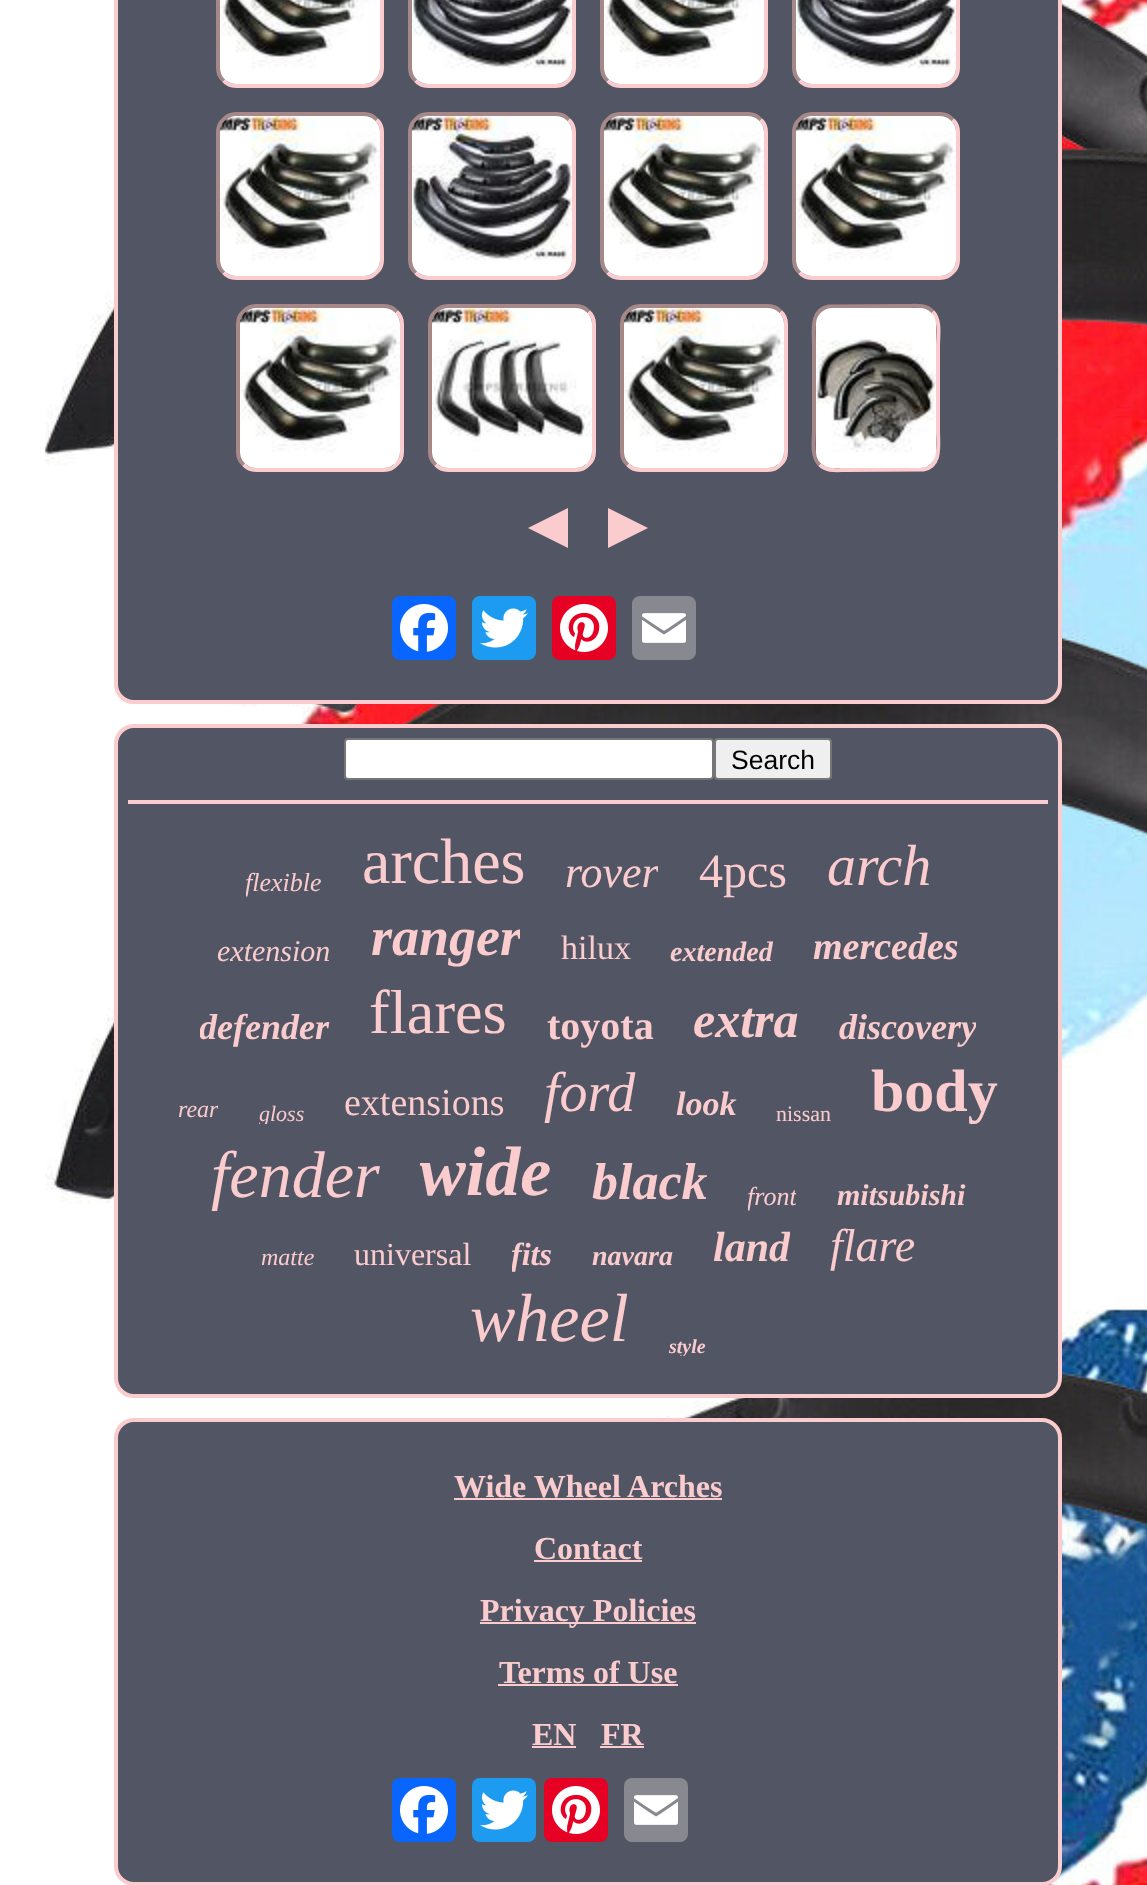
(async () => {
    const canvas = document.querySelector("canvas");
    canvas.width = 1147;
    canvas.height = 1885;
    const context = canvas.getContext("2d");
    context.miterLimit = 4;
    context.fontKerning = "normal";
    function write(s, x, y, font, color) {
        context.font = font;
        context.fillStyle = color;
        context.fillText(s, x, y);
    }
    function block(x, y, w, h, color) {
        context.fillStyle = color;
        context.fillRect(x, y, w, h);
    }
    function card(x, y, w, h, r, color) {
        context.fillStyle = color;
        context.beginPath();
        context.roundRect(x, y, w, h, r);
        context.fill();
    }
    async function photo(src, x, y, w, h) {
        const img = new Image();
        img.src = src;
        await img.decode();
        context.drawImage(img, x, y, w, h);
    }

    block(0, 0, 1147, 1885, "rgb(255, 255, 255)");
    await photo("media/1.png", 44, 0, 1103, 1885);
    context.fillStyle = "rgb(82, 85, 100)";
    context.beginPath();
    context.roundRect(116, -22, 944, 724, 18);
    context.fill();
    context.strokeStyle = "rgb(250, 204, 206)";
    context.lineWidth = 4;
    context.stroke();
    context.beginPath();
    context.moveTo(376.5, -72.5);
    context.bezierCurveTo(380, -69.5, 382, -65, 382, -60);
    context.lineTo(382, 68);
    context.bezierCurveTo(382, 73, 380, 77.5, 376.5, 80.5);
    context.bezierCurveTo(373.5, 84, 369, 86, 364, 86);
    context.lineTo(236, 86);
    context.bezierCurveTo(231, 86, 226.5, 84, 223.5, 80.5);
    context.stroke();
    context.beginPath();
    context.moveTo(223.5, 80.5);
    context.bezierCurveTo(220, 77.5, 218, 73, 218, 68);
    context.lineTo(218, -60);
    context.bezierCurveTo(218, -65, 220, -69.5, 223.5, -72.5);
    context.bezierCurveTo(226.5, -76, 231, -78, 236, -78);
    context.lineTo(364, -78);
    context.bezierCurveTo(369, -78, 373.5, -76, 376.5, -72.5);
    context.strokeStyle = "rgb(167, 136, 137)";
    context.stroke();
    await photo("media/2.png", 220, 0, 160, 84);
    context.beginPath();
    context.moveTo(568.5, -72.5);
    context.bezierCurveTo(572, -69.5, 574, -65, 574, -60);
    context.lineTo(574, 68);
    context.bezierCurveTo(574, 73, 572, 77.5, 568.5, 80.5);
    context.bezierCurveTo(565.5, 84, 561, 86, 556, 86);
    context.lineTo(428, 86);
    context.bezierCurveTo(423, 86, 418.5, 84, 415.5, 80.5);
    context.strokeStyle = "rgb(250, 204, 206)";
    context.stroke();
    context.beginPath();
    context.moveTo(415.5, 80.5);
    context.bezierCurveTo(412, 77.5, 410, 73, 410, 68);
    context.lineTo(410, -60);
    context.bezierCurveTo(410, -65, 412, -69.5, 415.5, -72.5);
    context.bezierCurveTo(418.5, -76, 423, -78, 428, -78);
    context.lineTo(556, -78);
    context.bezierCurveTo(561, -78, 565.5, -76, 568.5, -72.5);
    context.strokeStyle = "rgb(167, 136, 137)";
    context.stroke();
    await photo("media/3.png", 412, 0, 160, 84);
    context.beginPath();
    context.moveTo(760.5, -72.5);
    context.bezierCurveTo(764, -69.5, 766, -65, 766, -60);
    context.lineTo(766, 68);
    context.bezierCurveTo(766, 73, 764, 77.5, 760.5, 80.5);
    context.bezierCurveTo(757.5, 84, 753, 86, 748, 86);
    context.lineTo(620, 86);
    context.bezierCurveTo(615, 86, 610.5, 84, 607.5, 80.5);
    context.strokeStyle = "rgb(250, 204, 206)";
    context.stroke();
    context.beginPath();
    context.moveTo(607.5, 80.5);
    context.bezierCurveTo(604, 77.5, 602, 73, 602, 68);
    context.lineTo(602, -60);
    context.bezierCurveTo(602, -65, 604, -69.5, 607.5, -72.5);
    context.bezierCurveTo(610.5, -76, 615, -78, 620, -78);
    context.lineTo(748, -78);
    context.bezierCurveTo(753, -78, 757.5, -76, 760.5, -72.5);
    context.strokeStyle = "rgb(167, 136, 137)";
    context.stroke();
    await photo("media/4.png", 604, 0, 160, 84);
    context.beginPath();
    context.moveTo(952.5, -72.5);
    context.bezierCurveTo(956, -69.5, 958, -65, 958, -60);
    context.lineTo(958, 68);
    context.bezierCurveTo(958, 73, 956, 77.5, 952.5, 80.5);
    context.bezierCurveTo(949.5, 84, 945, 86, 940, 86);
    context.lineTo(812, 86);
    context.bezierCurveTo(807, 86, 802.5, 84, 799.5, 80.5);
    context.strokeStyle = "rgb(250, 204, 206)";
    context.stroke();
    context.beginPath();
    context.moveTo(799.5, 80.5);
    context.bezierCurveTo(796, 77.5, 794, 73, 794, 68);
    context.lineTo(794, -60);
    context.bezierCurveTo(794, -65, 796, -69.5, 799.5, -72.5);
    context.bezierCurveTo(802.5, -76, 807, -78, 812, -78);
    context.lineTo(940, -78);
    context.bezierCurveTo(945, -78, 949.5, -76, 952.5, -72.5);
    context.strokeStyle = "rgb(167, 136, 137)";
    context.stroke();
    await photo("media/3.png", 796, 0, 160, 84);
    context.beginPath();
    context.moveTo(376.5, 119.5);
    context.bezierCurveTo(380, 122.5, 382, 127, 382, 132);
    context.lineTo(382, 260);
    context.bezierCurveTo(382, 265, 380, 269.5, 376.5, 272.5);
    context.bezierCurveTo(373.5, 276, 369, 278, 364, 278);
    context.lineTo(236, 278);
    context.bezierCurveTo(231, 278, 226.5, 276, 223.5, 272.5);
    context.strokeStyle = "rgb(250, 204, 206)";
    context.stroke();
    context.beginPath();
    context.moveTo(223.5, 272.5);
    context.bezierCurveTo(220, 269.5, 218, 265, 218, 260);
    context.lineTo(218, 132);
    context.bezierCurveTo(218, 127, 220, 122.5, 223.5, 119.5);
    context.bezierCurveTo(226.5, 116, 231, 114, 236, 114);
    context.lineTo(364, 114);
    context.bezierCurveTo(369, 114, 373.5, 116, 376.5, 119.5);
    context.strokeStyle = "rgb(167, 136, 137)";
    context.stroke();
    await photo("media/5.png", 220, 116, 160, 160);
    context.beginPath();
    context.moveTo(568.5, 119.5);
    context.bezierCurveTo(572, 122.5, 574, 127, 574, 132);
    context.lineTo(574, 260);
    context.bezierCurveTo(574, 265, 572, 269.5, 568.5, 272.5);
    context.bezierCurveTo(565.5, 276, 561, 278, 556, 278);
    context.lineTo(428, 278);
    context.bezierCurveTo(423, 278, 418.5, 276, 415.5, 272.5);
    context.strokeStyle = "rgb(250, 204, 206)";
    context.stroke();
    context.beginPath();
    context.moveTo(415.5, 272.5);
    context.bezierCurveTo(412, 269.5, 410, 265, 410, 260);
    context.lineTo(410, 132);
    context.bezierCurveTo(410, 127, 412, 122.5, 415.5, 119.5);
    context.bezierCurveTo(418.5, 116, 423, 114, 428, 114);
    context.lineTo(556, 114);
    context.bezierCurveTo(561, 114, 565.5, 116, 568.5, 119.5);
    context.strokeStyle = "rgb(167, 136, 137)";
    context.stroke();
    await photo("media/6.png", 412, 116, 160, 160);
    context.beginPath();
    context.moveTo(760.5, 119.5);
    context.bezierCurveTo(764, 122.5, 766, 127, 766, 132);
    context.lineTo(766, 260);
    context.bezierCurveTo(766, 265, 764, 269.5, 760.5, 272.5);
    context.bezierCurveTo(757.5, 276, 753, 278, 748, 278);
    context.lineTo(620, 278);
    context.bezierCurveTo(615, 278, 610.5, 276, 607.5, 272.5);
    context.strokeStyle = "rgb(250, 204, 206)";
    context.stroke();
    context.beginPath();
    context.moveTo(607.5, 272.5);
    context.bezierCurveTo(604, 269.5, 602, 265, 602, 260);
    context.lineTo(602, 132);
    context.bezierCurveTo(602, 127, 604, 122.5, 607.5, 119.5);
    context.bezierCurveTo(610.5, 116, 615, 114, 620, 114);
    context.lineTo(748, 114);
    context.bezierCurveTo(753, 114, 757.5, 116, 760.5, 119.5);
    context.strokeStyle = "rgb(167, 136, 137)";
    context.stroke();
    await photo("media/7.png", 604, 116, 160, 160);
    context.beginPath();
    context.moveTo(952.5, 119.5);
    context.bezierCurveTo(956, 122.5, 958, 127, 958, 132);
    context.lineTo(958, 260);
    context.bezierCurveTo(958, 265, 956, 269.5, 952.5, 272.5);
    context.bezierCurveTo(949.5, 276, 945, 278, 940, 278);
    context.lineTo(812, 278);
    context.bezierCurveTo(807, 278, 802.5, 276, 799.5, 272.5);
    context.strokeStyle = "rgb(250, 204, 206)";
    context.stroke();
    context.beginPath();
    context.moveTo(799.5, 272.5);
    context.bezierCurveTo(796, 269.5, 794, 265, 794, 260);
    context.lineTo(794, 132);
    context.bezierCurveTo(794, 127, 796, 122.5, 799.5, 119.5);
    context.bezierCurveTo(802.5, 116, 807, 114, 812, 114);
    context.lineTo(940, 114);
    context.bezierCurveTo(945, 114, 949.5, 116, 952.5, 119.5);
    context.strokeStyle = "rgb(167, 136, 137)";
    context.stroke();
    await photo("media/5.png", 796, 116, 160, 160);
    context.beginPath();
    context.moveTo(396.5, 311.5);
    context.bezierCurveTo(400, 314.5, 402, 319, 402, 324);
    context.lineTo(402, 452);
    context.bezierCurveTo(402, 457, 400, 461.5, 396.5, 464.5);
    context.bezierCurveTo(393.5, 468, 389, 470, 384, 470);
    context.lineTo(256, 470);
    context.bezierCurveTo(251, 470, 246.5, 468, 243.5, 464.5);
    context.strokeStyle = "rgb(250, 204, 206)";
    context.stroke();
    context.beginPath();
    context.moveTo(243.5, 464.5);
    context.bezierCurveTo(240, 461.5, 238, 457, 238, 452);
    context.lineTo(238, 324);
    context.bezierCurveTo(238, 319, 240, 314.5, 243.5, 311.5);
    context.bezierCurveTo(246.5, 308, 251, 306, 256, 306);
    context.lineTo(384, 306);
    context.bezierCurveTo(389, 306, 393.5, 308, 396.5, 311.5);
    context.strokeStyle = "rgb(167, 136, 137)";
    context.stroke();
    await photo("media/8.png", 240, 308, 160, 160);
    context.beginPath();
    context.moveTo(588.5, 311.5);
    context.bezierCurveTo(592, 314.5, 594, 319, 594, 324);
    context.lineTo(594, 452);
    context.bezierCurveTo(594, 457, 592, 461.5, 588.5, 464.5);
    context.bezierCurveTo(585.5, 468, 581, 470, 576, 470);
    context.lineTo(448, 470);
    context.bezierCurveTo(443, 470, 438.5, 468, 435.5, 464.5);
    context.strokeStyle = "rgb(250, 204, 206)";
    context.stroke();
    context.beginPath();
    context.moveTo(435.5, 464.5);
    context.bezierCurveTo(432, 461.5, 430, 457, 430, 452);
    context.lineTo(430, 324);
    context.bezierCurveTo(430, 319, 432, 314.5, 435.5, 311.5);
    context.bezierCurveTo(438.5, 308, 443, 306, 448, 306);
    context.lineTo(576, 306);
    context.bezierCurveTo(581, 306, 585.5, 308, 588.5, 311.5);
    context.strokeStyle = "rgb(167, 136, 137)";
    context.stroke();
    await photo("media/9.png", 432, 308, 160, 160);
    context.beginPath();
    context.moveTo(780.5, 311.5);
    context.bezierCurveTo(784, 314.5, 786, 319, 786, 324);
    context.lineTo(786, 452);
    context.bezierCurveTo(786, 457, 784, 461.5, 780.5, 464.5);
    context.bezierCurveTo(777.5, 468, 773, 470, 768, 470);
    context.lineTo(640, 470);
    context.bezierCurveTo(635, 470, 630.5, 468, 627.5, 464.5);
    context.strokeStyle = "rgb(250, 204, 206)";
    context.stroke();
    context.beginPath();
    context.moveTo(627.5, 464.5);
    context.bezierCurveTo(624, 461.5, 622, 457, 622, 452);
    context.lineTo(622, 324);
    context.bezierCurveTo(622, 319, 624, 314.5, 627.5, 311.5);
    context.bezierCurveTo(630.5, 308, 635, 306, 640, 306);
    context.lineTo(768, 306);
    context.bezierCurveTo(773, 306, 777.5, 308, 780.5, 311.5);
    context.strokeStyle = "rgb(167, 136, 137)";
    context.stroke();
    await photo("media/10.png", 624, 308, 160, 160);
    context.beginPath();
    context.moveTo(932.5, 311.5);
    context.bezierCurveTo(941, 320, 938, 335.5, 938, 345.5);
    context.lineTo(938, 430.5);
    context.bezierCurveTo(938, 444.5, 942, 466, 923.5, 469.5);
    context.lineTo(846.5, 470);
    context.bezierCurveTo(837.5, 470, 826.5, 472, 819.5, 464.5);
    context.strokeStyle = "rgb(250, 204, 206)";
    context.stroke();
    context.beginPath();
    context.moveTo(819.5, 464.5);
    context.bezierCurveTo(811, 456, 814, 440.5, 814, 430.5);
    context.lineTo(814, 345.5);
    context.bezierCurveTo(814, 331.5, 810, 310, 828.5, 306.5);
    context.lineTo(905.5, 306);
    context.bezierCurveTo(914.5, 306, 925.5, 304, 932.5, 311.5);
    context.strokeStyle = "rgb(167, 136, 137)";
    context.stroke();
    await photo("media/11.png", 816, 308, 120, 160);
    context.fillStyle = "rgb(250, 204, 206)";
    context.beginPath();
    context.moveTo(568, 508);
    context.lineTo(568, 548);
    context.lineTo(528, 528);
    context.closePath();
    context.fill();
    context.beginPath();
    context.moveTo(608, 548);
    context.lineTo(608, 508);
    context.lineTo(648, 528);
    context.closePath();
    context.fill();
    card(392, 596, 64, 64, 8, "rgb(8, 102, 255)");
    await photo("media/12.png", 400, 604, 48, 48);
    card(472, 596, 64, 64, 8, "rgb(29, 155, 240)");
    await photo("media/13.png", 480, 608, 48, 40);
    card(552, 596, 64, 64, 8, "rgb(230, 0, 35)");
    await photo("media/14.png", 560, 604, 48, 48);
    card(632, 596, 64, 64, 8, "rgb(136, 137, 144)");
    await photo("media/15.png", 642, 613, 44, 30);
    context.fillStyle = "rgb(82, 85, 100)";
    context.beginPath();
    context.roundRect(116, 726, 944, 670, 18);
    context.fill();
    context.strokeStyle = "rgb(250, 204, 206)";
    context.stroke();
    context.fillStyle = "rgb(255, 255, 255)";
    context.beginPath();
    context.roundRect(345, 739, 368, 40, 3);
    context.fill();
    context.strokeStyle = "rgb(118, 118, 118)";
    context.lineWidth = 2;
    context.stroke();
    context.fillStyle = "rgb(239, 239, 239)";
    context.beginPath();
    context.roundRect(715, 739, 116, 40, 3);
    context.fill();
    context.stroke();
    write("Search", 731, 769, "26.5px Liberation Sans", "rgb(0, 0, 0)");
    block(128, 800, 920, 4, "rgb(250, 204, 206)");
    context.save();
    context.beginPath();
    context.rect(246, 866, 76, 32);
    context.clip();
    write("flexible", 245, 891, "italic 26px Liberation Serif", "rgb(250, 204, 206)");
    context.restore();
    write("arches", 362, 883, "64px Liberation Serif", "rgb(250, 204, 206)");
    context.save();
    context.beginPath();
    context.rect(566, 846, 92, 52);
    context.clip();
    write("rover", 565, 887, "italic 44px Liberation Serif", "rgb(250, 204, 206)");
    context.restore();
    write("4pcs", 699, 887, "48px Liberation Serif", "rgb(250, 204, 206)");
    write("arch", 827, 885, "italic 58px Liberation Serif", "rgb(250, 204, 206)");
    write("extension", 217, 961, "italic 30px Liberation Serif", "rgb(250, 204, 206)");
    context.save();
    context.beginPath();
    context.rect(370, 906, 150, 62);
    context.clip();
    write("ranger", 371, 955, "italic bold 54px Liberation Serif", "rgb(250, 204, 206)");
    context.restore();
    write("hilux", 561, 959, "34px Liberation Serif", "rgb(250, 204, 206)");
    write("extended", 670, 961, "italic bold 28px Liberation Serif", "rgb(250, 204, 206)");
    write("mercedes", 813, 959, "italic bold 38px Liberation Serif", "rgb(250, 204, 206)");
    context.save();
    context.beginPath();
    context.rect(200, 1006, 130, 42);
    context.clip();
    write("defender", 199, 1039, "italic bold 36px Liberation Serif", "rgb(250, 204, 206)");
    context.restore();
    write("flares", 369, 1033, "62px Liberation Serif", "rgb(250, 204, 206)");
    write("toyota", 547, 1039, "bold 40px Liberation Serif", "rgb(250, 204, 206)");
    write("extra", 693, 1037, "italic bold 50px Liberation Serif", "rgb(250, 204, 206)");
    context.save();
    context.beginPath();
    context.rect(838, 1006, 138, 42);
    context.clip();
    write("discovery", 839, 1039, "italic bold 36px Liberation Serif", "rgb(250, 204, 206)");
    context.restore();
    context.save();
    context.beginPath();
    context.rect(178, 1094, 40, 30);
    context.clip();
    write("rear", 178, 1117, "italic 24px Liberation Serif", "rgb(250, 204, 206)");
    context.restore();
    context.save();
    context.beginPath();
    context.rect(258, 1100, 46, 24);
    context.clip();
    write("gloss", 259, 1121, "italic 22px Liberation Serif", "rgb(250, 204, 206)");
    context.restore();
    write("extensions", 344, 1115, "38px Liberation Serif", "rgb(250, 204, 206)");
    write("ford", 544, 1111, "italic 56px Liberation Serif", "rgb(250, 204, 206)");
    write("look", 676, 1115, "italic bold 34px Liberation Serif", "rgb(250, 204, 206)");
    write("nissan", 776, 1121, "22px Liberation Serif", "rgb(250, 204, 206)");
    write("body", 871, 1111, "bold 60px Liberation Serif", "rgb(250, 204, 206)");
    write("fender", 211, 1197, "italic 66px Liberation Serif", "rgb(250, 204, 206)");
    context.save();
    context.beginPath();
    context.rect(420, 1132, 132, 80);
    context.clip();
    write("wide", 419, 1195, "italic bold 70px Liberation Serif", "rgb(250, 204, 206)");
    context.restore();
    write("black", 592, 1199, "italic bold 52px Liberation Serif", "rgb(250, 204, 206)");
    context.save();
    context.beginPath();
    context.rect(748, 1180, 48, 32);
    context.clip();
    write("front", 747, 1205, "italic 26px Liberation Serif", "rgb(250, 204, 206)");
    context.restore();
    write("mitsubishi", 837, 1205, "italic bold 30px Liberation Serif", "rgb(250, 204, 206)");
    write("matte", 261, 1265, "italic 24px Liberation Serif", "rgb(250, 204, 206)");
    write("universal", 354, 1265, "32px Liberation Serif", "rgb(250, 204, 206)");
    context.save();
    context.beginPath();
    context.rect(512, 1236, 40, 36);
    context.clip();
    write("fits", 511, 1265, "italic bold 32px Liberation Serif", "rgb(250, 204, 206)");
    context.restore();
    write("navara", 592, 1265, "italic bold 28px Liberation Serif", "rgb(250, 204, 206)");
    context.save();
    context.beginPath();
    context.rect(714, 1222, 76, 50);
    context.clip();
    write("land", 713, 1261, "italic bold 42px Liberation Serif", "rgb(250, 204, 206)");
    context.restore();
    write("flare", 830, 1261, "italic 46px Liberation Serif", "rgb(250, 204, 206)");
    write("wheel", 470, 1341, "italic 68px Liberation Serif", "rgb(250, 204, 206)");
    context.save();
    context.beginPath();
    context.rect(668, 1334, 38, 22);
    context.clip();
    write("style", 669, 1353, "italic bold 20px Liberation Serif", "rgb(250, 204, 206)");
    context.restore();
    context.fillStyle = "rgb(82, 85, 100)";
    context.beginPath();
    context.roundRect(116, 1420, 944, 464, 18);
    context.fill();
    context.strokeStyle = "rgb(250, 204, 206)";
    context.lineWidth = 4;
    context.stroke();
    write("Wide Wheel Arches", 454, 1497, "bold 32px Liberation Serif", "rgb(250, 204, 206)");
    block(454, 1498, 268, 2, "rgb(250, 204, 206)");
    write("Contact", 534, 1559, "bold 32px Liberation Serif", "rgb(250, 204, 206)");
    block(534, 1560, 108, 2, "rgb(250, 204, 206)");
    block(480, 1622, 216, 2, "rgb(250, 204, 206)");
    write("Privacy Policies", 480, 1621, "bold 32px Liberation Serif", "rgb(250, 204, 206)");
    write("Terms of Use", 499, 1683, "bold 32px Liberation Serif", "rgb(250, 204, 206)");
    block(498, 1684, 180, 2, "rgb(250, 204, 206)");
    write("EN", 532, 1745, "bold 32px Liberation Serif", "rgb(250, 204, 206)");
    block(532, 1746, 44, 2, "rgb(250, 204, 206)");
    write("FR", 601, 1745, "bold 32px Liberation Serif", "rgb(250, 204, 206)");
    block(600, 1746, 44, 2, "rgb(250, 204, 206)");
    card(392, 1778, 64, 64, 8, "rgb(8, 102, 255)");
    await photo("media/12.png", 400, 1786, 48, 48);
    card(472, 1778, 64, 64, 8, "rgb(29, 155, 240)");
    await photo("media/13.png", 480, 1790, 48, 40);
    card(544, 1778, 64, 64, 8, "rgb(230, 0, 35)");
    await photo("media/14.png", 552, 1786, 48, 48);
    card(624, 1778, 64, 64, 8, "rgb(136, 137, 144)");
    await photo("media/15.png", 634, 1795, 44, 30);
})();
